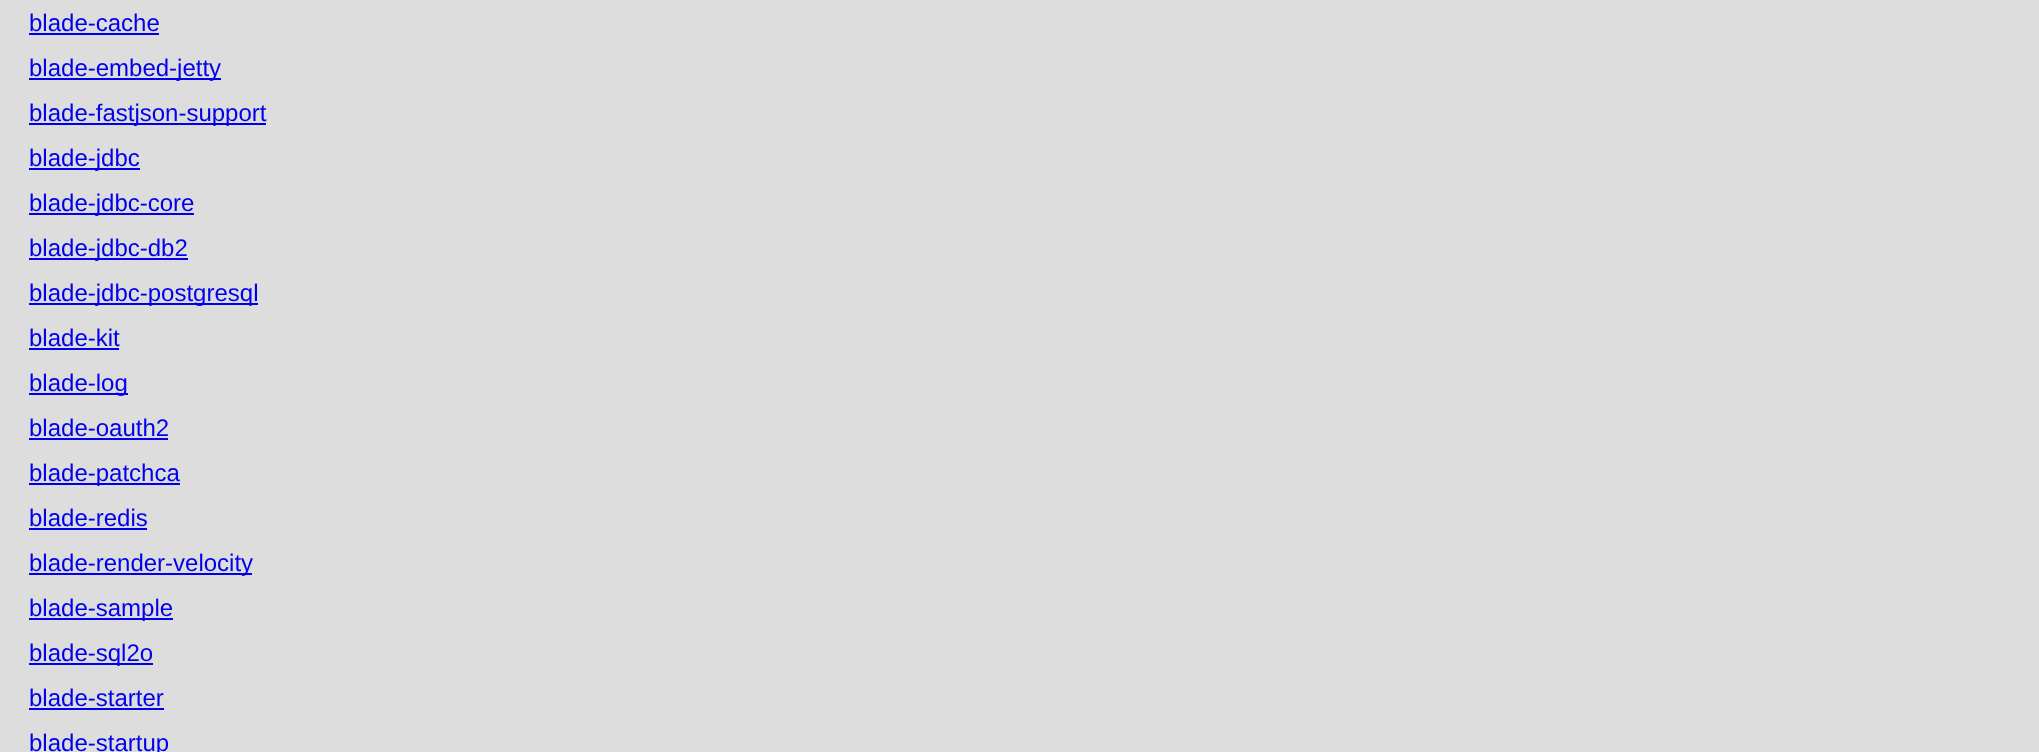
(async () => {
    const canvas = document.querySelector("canvas");
    canvas.width = 2039;
    canvas.height = 752;
    const context = canvas.getContext("2d");
    context.miterLimit = 4;
    context.fontKerning = "normal";
    function write(s, x, y, font, color) {
        context.font = font;
        context.fillStyle = color;
        context.fillText(s, x, y);
    }
    function block(x, y, w, h, color) {
        context.fillStyle = color;
        context.fillRect(x, y, w, h);
    }

    block(0, 0, 2039, 752, "rgb(221, 221, 221)");
    write("blade-cache", 29, 31, "24px Liberation Sans", "rgb(0, 0, 238)");
    block(29, 33, 130, 2, "rgb(0, 0, 238)");
    block(29, 78, 192, 2, "rgb(0, 0, 238)");
    write("blade-embed-jetty", 29, 76, "24px Liberation Sans", "rgb(0, 0, 238)");
    block(29, 123, 237, 2, "rgb(0, 0, 238)");
    write("blade-fastjson-support", 29, 121, "24px Liberation Sans", "rgb(0, 0, 238)");
    block(29, 168, 111, 2, "rgb(0, 0, 238)");
    write("blade-jdbc", 29, 166, "24px Liberation Sans", "rgb(0, 0, 238)");
    block(29, 213, 165, 2, "rgb(0, 0, 238)");
    write("blade-jdbc-core", 29, 211, "24px Liberation Sans", "rgb(0, 0, 238)");
    block(29, 258, 159, 2, "rgb(0, 0, 238)");
    write("blade-jdbc-db2", 29, 256, "24px Liberation Sans", "rgb(0, 0, 238)");
    block(29, 303, 229, 2, "rgb(0, 0, 238)");
    write("blade-jdbc-postgresql", 29, 301, "24px Liberation Sans", "rgb(0, 0, 238)");
    write("blade-kit", 29, 346, "24px Liberation Sans", "rgb(0, 0, 238)");
    block(29, 348, 90, 2, "rgb(0, 0, 238)");
    block(29, 393, 99, 2, "rgb(0, 0, 238)");
    write("blade-log", 29, 391, "24px Liberation Sans", "rgb(0, 0, 238)");
    write("blade-oauth2", 29, 436, "24px Liberation Sans", "rgb(0, 0, 238)");
    block(29, 438, 139, 2, "rgb(0, 0, 238)");
    block(29, 483, 151, 2, "rgb(0, 0, 238)");
    write("blade-patchca", 29, 481, "24px Liberation Sans", "rgb(0, 0, 238)");
    write("blade-redis", 29, 526, "24px Liberation Sans", "rgb(0, 0, 238)");
    block(29, 528, 118, 2, "rgb(0, 0, 238)");
    block(29, 573, 223, 2, "rgb(0, 0, 238)");
    write("blade-render-velocity", 29, 571, "24px Liberation Sans", "rgb(0, 0, 238)");
    block(29, 618, 144, 2, "rgb(0, 0, 238)");
    write("blade-sample", 29, 616, "24px Liberation Sans", "rgb(0, 0, 238)");
    block(29, 663, 124, 2, "rgb(0, 0, 238)");
    write("blade-sql2o", 29, 661, "24px Liberation Sans", "rgb(0, 0, 238)");
    write("blade-starter", 29, 706, "24px Liberation Sans", "rgb(0, 0, 238)");
    block(29, 708, 135, 2, "rgb(0, 0, 238)");
    write("blade-startup", 29, 751, "24px Liberation Sans", "rgb(0, 0, 238)");
})();
